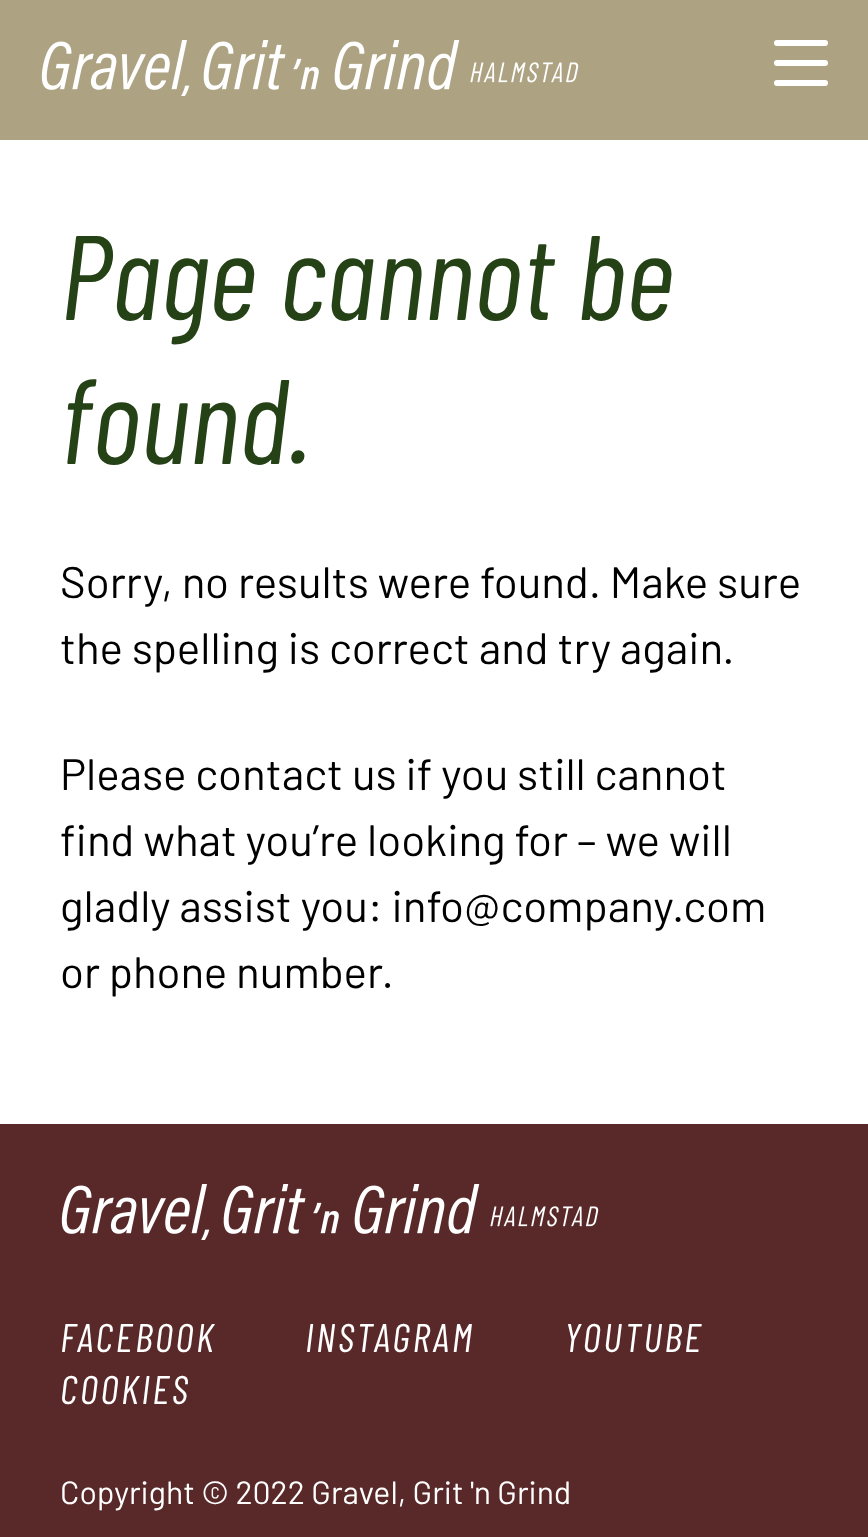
(async () => {
    const canvas = document.querySelector("canvas");
    canvas.width = 868;
    canvas.height = 1537;
    const context = canvas.getContext("2d");
    context.miterLimit = 4;
    context.fontKerning = "normal";
    function write(s, x, y, font, color) {
        context.font = font;
        context.fillStyle = color;
        context.fillText(s, x, y);
    }
    function block(x, y, w, h, color) {
        context.fillStyle = color;
        context.fillRect(x, y, w, h);
    }
    function card(x, y, w, h, r, color) {
        context.fillStyle = color;
        context.beginPath();
        context.roundRect(x, y, w, h, r);
        context.fill();
    }
    async function photo(src, x, y, w, h) {
        const img = new Image();
        img.src = src;
        await img.decode();
        context.drawImage(img, x, y, w, h);
    }

    block(0, 0, 868, 1537, "rgb(255, 255, 255)");
    block(0, 0, 868, 140, "rgb(173, 162, 130)");
    await photo("media/1.png", 41, 40, 538, 56);
    card(774, 40, 54, 6, 3, "rgb(255, 255, 255)");
    card(774, 60, 54, 6, 3, "rgb(255, 255, 255)");
    card(774, 80, 54, 6, 3, "rgb(255, 255, 255)");
    write("Page cannot be", 60, 320, "italic 120px Barlow Condensed", "rgb(37, 66, 23)");
    write("found.", 60, 464, "italic 120px Barlow Condensed", "rgb(37, 66, 23)");
    write("Sorry, no results were found. Make sure", 60, 598, "44px Barlow", "rgb(0, 0, 0)");
    write("the spelling is correct and try again.", 60, 664, "44px Barlow", "rgb(0, 0, 0)");
    write("Please contact us if you still cannot", 60, 790, "44px Barlow", "rgb(0, 0, 0)");
    write("find what you’re looking for – we will", 60, 856, "44px Barlow", "rgb(0, 0, 0)");
    write("gladly assist you: info@company.com", 60, 922, "44px Barlow", "rgb(0, 0, 0)");
    write("or phone number.", 60, 988, "44px Barlow", "rgb(0, 0, 0)");
    block(0, 1124, 868, 413, "rgb(89, 41, 41)");
    await photo("media/2.png", 61, 1184, 538, 56);
    context.letterSpacing = "2.75px";
    write("FACEBOOK", 60, 1352, "italic 40px Barlow Condensed", "rgb(255, 255, 255)");
    write("INSTAGRAM", 305, 1352, "italic 40px Barlow Condensed", "rgb(255, 255, 255)");
    write("YOUTUBE", 564, 1352, "italic 40px Barlow Condensed", "rgb(255, 255, 255)");
    write("COOKIES", 60, 1404, "italic 40px Barlow Condensed", "rgb(255, 255, 255)");
    context.letterSpacing = "0px";
    write("Copyright © 2022 Gravel, Grit 'n Grind", 60, 1504, "32px Barlow", "rgb(255, 255, 255)");
})();
